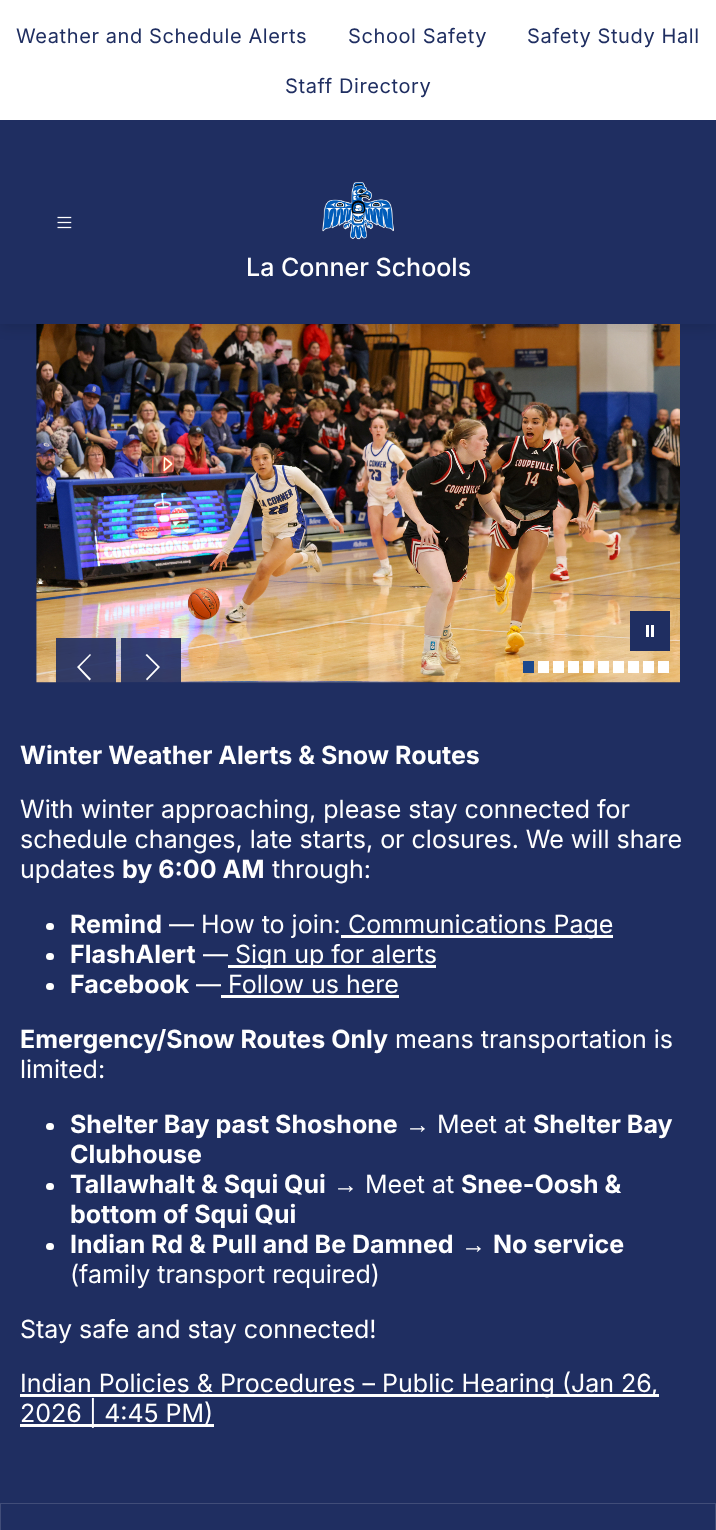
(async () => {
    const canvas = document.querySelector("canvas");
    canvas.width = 716;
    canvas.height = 1530;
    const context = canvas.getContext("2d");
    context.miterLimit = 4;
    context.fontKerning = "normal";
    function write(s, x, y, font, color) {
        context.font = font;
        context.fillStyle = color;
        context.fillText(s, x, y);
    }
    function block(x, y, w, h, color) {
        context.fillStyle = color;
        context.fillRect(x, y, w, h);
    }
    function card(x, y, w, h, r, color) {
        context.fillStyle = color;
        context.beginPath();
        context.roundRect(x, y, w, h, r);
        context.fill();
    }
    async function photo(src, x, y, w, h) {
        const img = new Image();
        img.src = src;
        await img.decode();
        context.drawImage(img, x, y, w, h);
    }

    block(0, 0, 716, 1530, "rgb(31, 46, 97)");
    await photo("media/3.png", 36, 324, 644, 359);
    context.fillStyle = "rgba(0, 0, 0, 0.1)";
    context.filter = "blur(6px)";
    context.beginPath();
    context.rect(0, 5, 716, 324);
    context.fill();
    context.filter = "none";
    block(0, 120, 716, 204, "rgb(31, 46, 97)");
    block(0, 0, 716, 120, "rgb(255, 255, 255)");
    context.letterSpacing = "0.6px";
    write("Weather and Schedule Alerts", 16, 43, "20px Inter", "rgb(31, 46, 97)");
    write("School Safety", 348, 43, "20px Inter", "rgb(31, 46, 97)");
    write("Safety Study Hall", 527, 43, "20px Inter", "rgb(31, 46, 97)");
    write("Staff Directory", 285, 93, "20px Inter", "rgb(31, 46, 97)");
    await photo("media/1.png", 57, 216, 15, 13);
    await photo("media/2.png", 322, 182, 72, 58);
    context.letterSpacing = "0px";
    write("La Conner Schools", 246, 276, "500 25px Inter", "rgb(255, 255, 255)");
    block(630, 611, 40, 40, "rgb(31, 46, 97)");
    context.fillStyle = "rgb(255, 255, 255)";
    context.beginPath();
    context.moveTo(649, 625);
    context.lineTo(646, 625);
    context.lineTo(646, 637);
    context.lineTo(649, 637);
    context.closePath();
    context.moveTo(654, 625);
    context.lineTo(651, 625);
    context.lineTo(651, 637);
    context.lineTo(654, 637);
    context.closePath();
    context.fill("evenodd");
    block(523, 661, 11, 12, "rgb(27, 73, 141)");
    block(538, 661, 11, 12, "rgb(255, 255, 255)");
    block(553, 661, 11, 12, "rgb(255, 255, 255)");
    block(568, 661, 11, 12, "rgb(255, 255, 255)");
    block(583, 661, 11, 12, "rgb(255, 255, 255)");
    block(598, 661, 11, 12, "rgb(255, 255, 255)");
    block(613, 661, 11, 12, "rgb(255, 255, 255)");
    block(628, 661, 11, 12, "rgb(255, 255, 255)");
    block(643, 661, 11, 12, "rgb(255, 255, 255)");
    block(658, 661, 11, 12, "rgb(255, 255, 255)");
    block(56, 638, 60, 45, "rgba(31, 46, 97, 0.9)");
    context.fillStyle = "rgb(255, 255, 255)";
    context.beginPath();
    context.moveTo(79.5, 667);
    context.lineTo(91, 679);
    context.lineTo(89.5, 680.5);
    context.lineTo(77, 667);
    context.lineTo(90, 654);
    context.lineTo(91, 655);
    context.closePath();
    context.fill("evenodd");
    block(121, 638, 60, 45, "rgba(31, 46, 97, 0.9)");
    context.fillStyle = "rgb(255, 255, 255)";
    context.beginPath();
    context.moveTo(157.5, 667);
    context.lineTo(146, 679);
    context.lineTo(147, 680.5);
    context.lineTo(160, 667);
    context.lineTo(147, 654);
    context.lineTo(145.5, 655);
    context.closePath();
    context.fill("evenodd");
    write("Winter Weather Alerts & Snow Routes", 20, 764, "bold 25px Inter", "rgb(255, 255, 255)");
    write("With winter approaching, please stay connected for", 20, 818, "25px Inter", "rgb(255, 255, 255)");
    write("schedule changes, late starts, or closures. We will share", 20, 848, "25px Inter", "rgb(255, 255, 255)");
    write("updates", 20, 878, "25px Inter", "rgb(255, 255, 255)");
    write("by 6:00 AM", 122, 878, "bold 25px Inter", "rgb(255, 255, 255)");
    write("through:", 272, 878, "25px Inter", "rgb(255, 255, 255)");
    card(46, 923, 8, 7, 3.5, "rgb(255, 255, 255)");
    write("Remind", 70, 933, "bold 25px Inter", "rgb(255, 255, 255)");
    write("— How to join:", 169, 933, "25px Inter", "rgb(255, 255, 255)");
    block(341, 935, 272, 3, "rgb(255, 255, 255)");
    write("Communications Page", 348, 933, "25px Inter", "rgb(255, 255, 255)");
    card(46, 953, 8, 7, 3.5, "rgb(255, 255, 255)");
    write("FlashAlert", 70, 963, "bold 25px Inter", "rgb(255, 255, 255)");
    write("—", 203, 963, "25px Inter", "rgb(255, 255, 255)");
    block(228, 965, 208, 3, "rgb(255, 255, 255)");
    write("Sign up for alerts", 235, 963, "25px Inter", "rgb(255, 255, 255)");
    card(46, 983, 8, 7, 3.5, "rgb(255, 255, 255)");
    write("Facebook", 70, 993, "bold 25px Inter", "rgb(255, 255, 255)");
    write("— Follow us here", 196, 993, "25px Inter", "rgb(255, 255, 255)");
    block(221, 995, 178, 3, "rgb(255, 255, 255)");
    write("Emergency/Snow Routes Only", 20, 1048, "bold 25px Inter", "rgb(255, 255, 255)");
    write("means transportation is", 395, 1048, "25px Inter", "rgb(255, 255, 255)");
    write("limited:", 20, 1078, "25px Inter", "rgb(255, 255, 255)");
    card(46, 1123, 8, 7, 3.5, "rgb(255, 255, 255)");
    write("Shelter Bay past Shoshone", 70, 1133, "bold 25px Inter", "rgb(255, 255, 255)");
    write("→", 405, 1133, "25px Liberation Sans", "rgb(255, 255, 255)");
    write("Meet at", 437, 1133, "25px Inter", "rgb(255, 255, 255)");
    write("Shelter Bay", 533, 1133, "bold 25px Inter", "rgb(255, 255, 255)");
    write("Clubhouse", 70, 1163, "bold 25px Inter", "rgb(255, 255, 255)");
    card(46, 1183, 8, 7, 3.5, "rgb(255, 255, 255)");
    write("Tallawhalt & Squi Qui", 70, 1193, "bold 25px Inter", "rgb(255, 255, 255)");
    write("→", 333, 1193, "25px Liberation Sans", "rgb(255, 255, 255)");
    write("Meet at", 365, 1193, "25px Inter", "rgb(255, 255, 255)");
    write("Snee-Oosh &", 461, 1193, "bold 25px Inter", "rgb(255, 255, 255)");
    write("bottom of Squi Qui", 70, 1223, "bold 25px Inter", "rgb(255, 255, 255)");
    card(46, 1243, 8, 7, 3.5, "rgb(255, 255, 255)");
    write("Indian Rd & Pull and Be Damned", 70, 1253, "bold 25px Inter", "rgb(255, 255, 255)");
    write("→", 461, 1253, "25px Liberation Sans", "rgb(255, 255, 255)");
    write("No service", 493, 1253, "bold 25px Inter", "rgb(255, 255, 255)");
    write("(family transport required)", 70, 1283, "25px Inter", "rgb(255, 255, 255)");
    write("Stay safe and stay connected!", 20, 1338, "25px Inter", "rgb(255, 255, 255)");
    block(20, 1394, 639, 3, "rgb(255, 255, 255)");
    write("Indian Policies & Procedures – Public Hearing (Jan 26,", 20, 1392, "25px Inter", "rgb(255, 255, 255)");
    block(20, 1424, 194, 3, "rgb(255, 255, 255)");
    write("2026 | 4:45 PM)", 20, 1422, "25px Inter", "rgb(255, 255, 255)");
    context.strokeStyle = "rgb(65, 77, 121)";
    context.strokeRect(0.5, 1503.5, 715, 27);
})();
